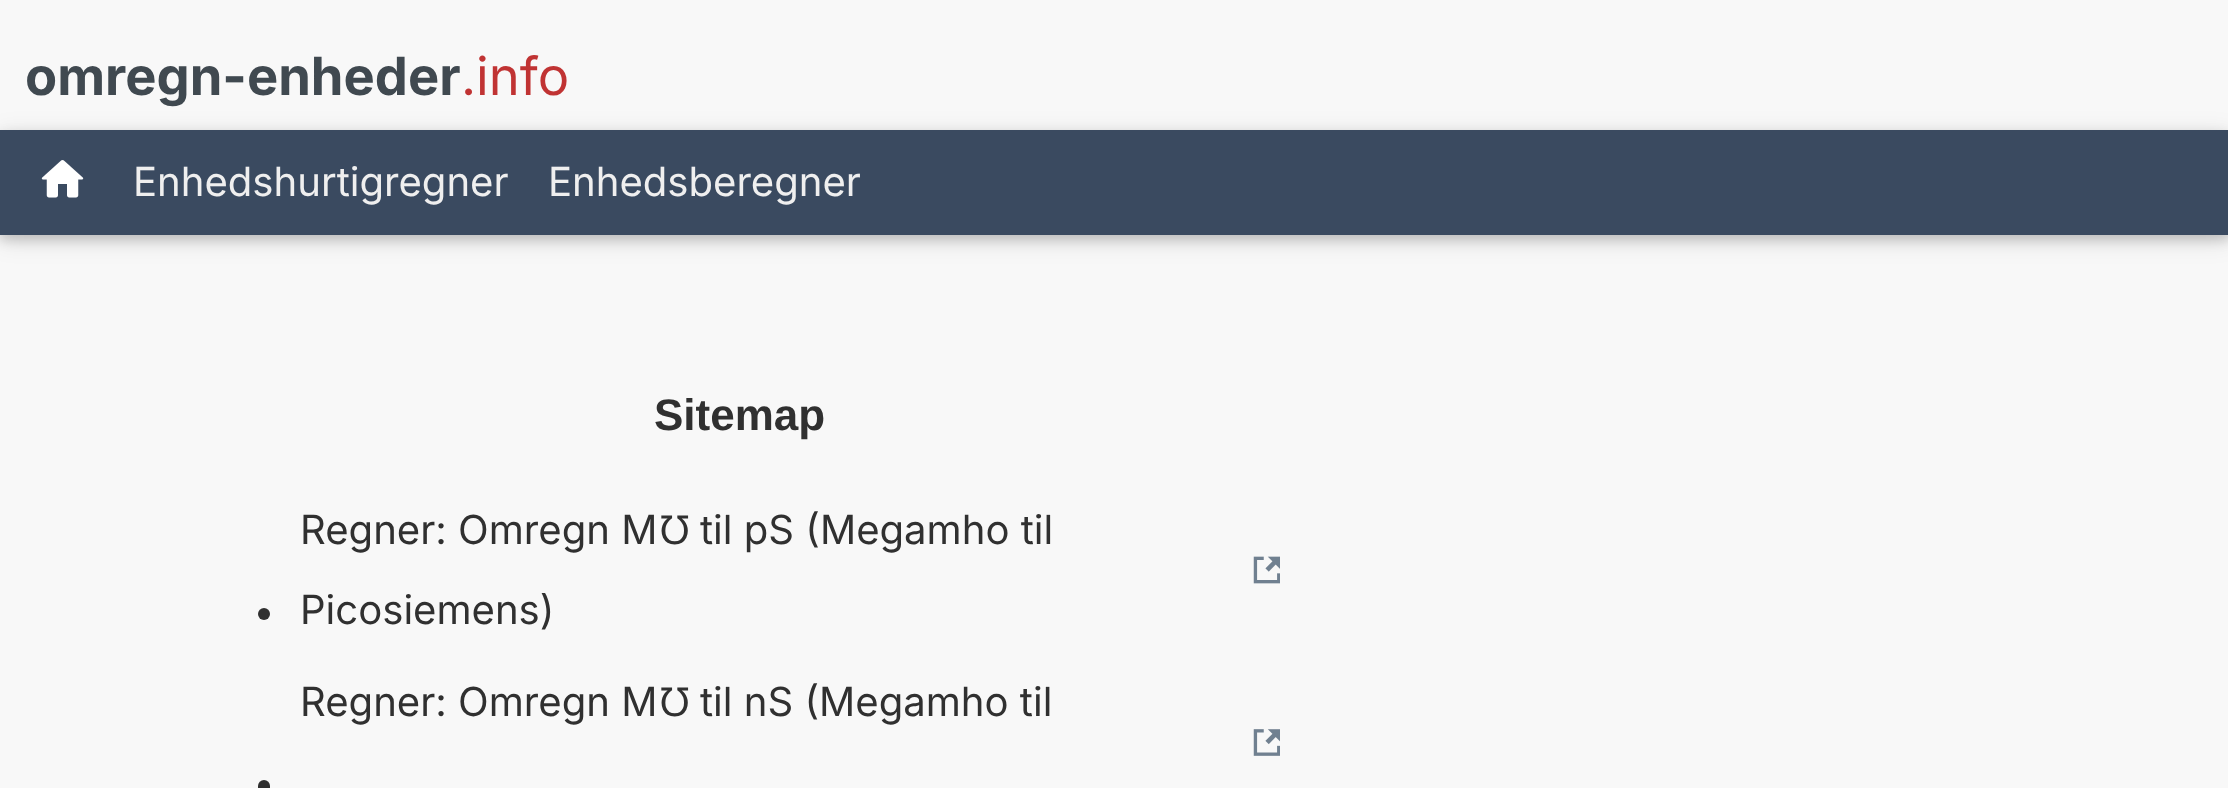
(async () => {
    const canvas = document.querySelector("canvas");
    canvas.width = 2228;
    canvas.height = 788;
    const context = canvas.getContext("2d");
    context.miterLimit = 4;
    context.fontKerning = "normal";
    function write(s, x, y, font, color) {
        context.font = font;
        context.fillStyle = color;
        context.fillText(s, x, y);
    }
    function block(x, y, w, h, color) {
        context.fillStyle = color;
        context.fillRect(x, y, w, h);
    }
    function card(x, y, w, h, r, color) {
        context.fillStyle = color;
        context.beginPath();
        context.roundRect(x, y, w, h, r);
        context.fill();
    }
    async function photo(src, x, y, w, h) {
        const img = new Image();
        img.src = src;
        await img.decode();
        context.drawImage(img, x, y, w, h);
    }

    block(0, 0, 2228, 788, "rgb(248, 248, 248)");
    context.fillStyle = "rgba(0, 0, 0, 0.12)";
    context.filter = "blur(12.5px)";
    context.beginPath();
    context.rect(0, 135, 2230, 105);
    context.fill();
    context.filter = "none";
    write("omregn-enheder", 25, 95, "bold 52.5px Inter", "rgb(64, 73, 80)");
    write(".info", 461, 95, "52.5px Inter", "rgb(192, 51, 51)");
    context.fillStyle = "rgba(0, 0, 0, 0.16)";
    context.filter = "blur(6px)";
    context.beginPath();
    context.rect(0, 135, 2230, 105);
    context.fill();
    context.filter = "none";
    block(0, 130, 2228, 105, "rgb(58, 74, 96)");
    await photo("media/1.png", 41, 160, 43, 38);
    write("Enhedshurtigregner", 133, 196, "40.1px Inter", "rgb(239, 239, 239)");
    write("Enhedsberegner", 548, 196, "40.1px Inter", "rgb(239, 239, 239)");
    write("Sitemap", 654, 430, "bold 44px Liberation Sans", "rgb(48, 48, 48)");
    context.beginPath();
    context.arc(264, 614, 6, 0, Math.PI * 2);
    context.fill();
    await photo("media/2.png", 1253, 556, 27, 28);
    write("Regner: Omregn M", 300, 544, "40.1px Inter", "rgb(48, 48, 48)");
    write("℧", 658, 544, "40.1px Noto Sans", "rgb(48, 48, 48)");
    write("til pS (Megamho til", 700, 544, "40.1px Inter", "rgb(48, 48, 48)");
    write("Picosiemens)", 300, 624, "40.1px Inter", "rgb(48, 48, 48)");
    await photo("media/3.png", 1253, 729, 27, 27);
    write("Regner: Omregn M", 300, 716, "40.1px Inter", "rgb(48, 48, 48)");
    write("℧", 658, 716, "40.1px Noto Sans", "rgb(48, 48, 48)");
    write("til nS (Megamho til", 700, 716, "40.1px Inter", "rgb(48, 48, 48)");
    card(258, 780, 12, 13, 6, "rgb(48, 48, 48)");
})();
